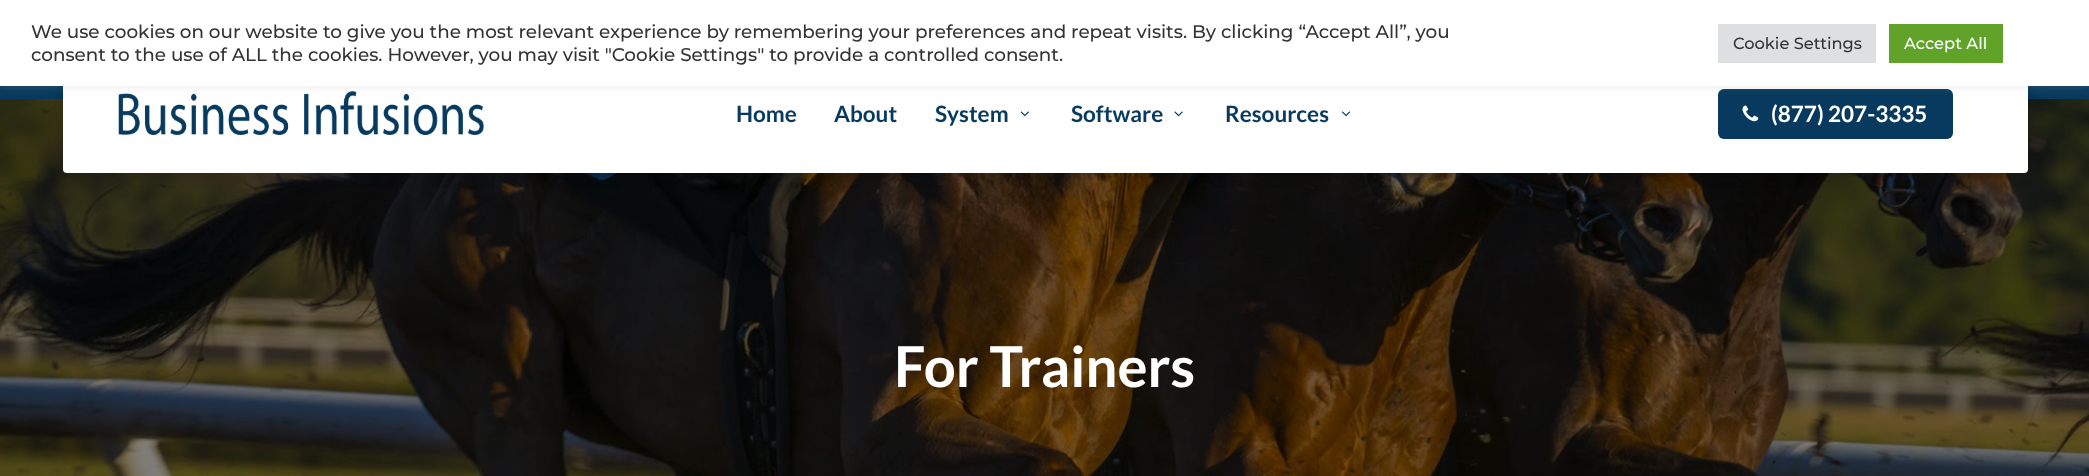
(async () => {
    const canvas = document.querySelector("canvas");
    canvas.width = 2089;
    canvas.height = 476;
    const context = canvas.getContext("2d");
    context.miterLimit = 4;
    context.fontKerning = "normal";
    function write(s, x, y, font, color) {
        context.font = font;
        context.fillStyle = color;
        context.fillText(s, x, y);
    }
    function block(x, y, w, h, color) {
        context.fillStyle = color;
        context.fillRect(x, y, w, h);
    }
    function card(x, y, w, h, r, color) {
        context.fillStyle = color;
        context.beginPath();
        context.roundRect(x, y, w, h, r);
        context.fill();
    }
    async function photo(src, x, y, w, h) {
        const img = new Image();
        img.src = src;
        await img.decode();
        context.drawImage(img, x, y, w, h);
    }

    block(0, 0, 2089, 476, "rgb(255, 255, 255)");
    block(0, 86, 2089, 13, "rgb(7, 58, 94)");
    await photo("media/6.png", 0, 99, 2089, 377);
    context.fillStyle = "rgba(0, 0, 0, 0.23)";
    context.filter = "blur(7px)";
    context.beginPath();
    context.roundRect(63, 54, 1965, 119, 4);
    context.fill();
    context.filter = "none";
    card(63, 54, 1965, 119, 4, "rgb(255, 255, 255)");
    await photo("media/1.png", 118, 91, 366, 44);
    card(1718, 89, 235, 50, 6, "rgb(7, 58, 94)");
    context.fillStyle = "rgba(172, 171, 171, 0.3)";
    context.filter = "blur(6px)";
    context.beginPath();
    context.rect(0, -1, 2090, 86);
    context.fill();
    context.filter = "none";
    block(0, 0, 2089, 86, "rgb(255, 255, 255)");
    write("We use cookies on our website to give you the most relevant experience by remembering your preferences and repeat visits. By clicking “Accept All”, you", 31, 38, "500 18.33px Montserrat", "rgb(51, 51, 51)");
    write("consent to the use of ALL the cookies. However, you may visit \"Cookie Settings\" to provide a controlled consent.", 31, 61, "500 18.33px Montserrat", "rgb(51, 51, 51)");
    block(1718, 24, 158, 39, "rgb(222, 223, 224)");
    write("Cookie Settings", 1733, 49, "500 16.25px Montserrat", "rgb(51, 51, 51)");
    block(1889, 24, 114, 39, "rgb(97, 162, 41)");
    write("Accept All", 1904, 49, "500 16.25px Montserrat", "rgb(255, 255, 255)");
    write("Home", 736, 122, "bold 22.5px Lato", "rgb(7, 58, 94)");
    write("About", 834, 122, "bold 22.5px Lato", "rgb(7, 58, 94)");
    write("System", 935, 122, "bold 22.5px Lato", "rgb(7, 58, 94)");
    await photo("media/2.png", 1020, 111, 9, 6);
    write("Software", 1071, 122, "bold 22.5px Lato", "rgb(7, 58, 94)");
    await photo("media/3.png", 1174, 111, 9, 6);
    write("Resources", 1225, 122, "bold 22.5px Lato", "rgb(7, 58, 94)");
    await photo("media/4.png", 1342, 111, 9, 6);
    await photo("media/5.png", 1742, 105, 17, 17);
    write("(877) 207-3335", 1771, 122, "bold 22.5px Lato", "rgb(255, 255, 255)");
    write("For Trainers", 894, 387, "bold 56.25px Lato", "rgb(255, 255, 255)");
})();
